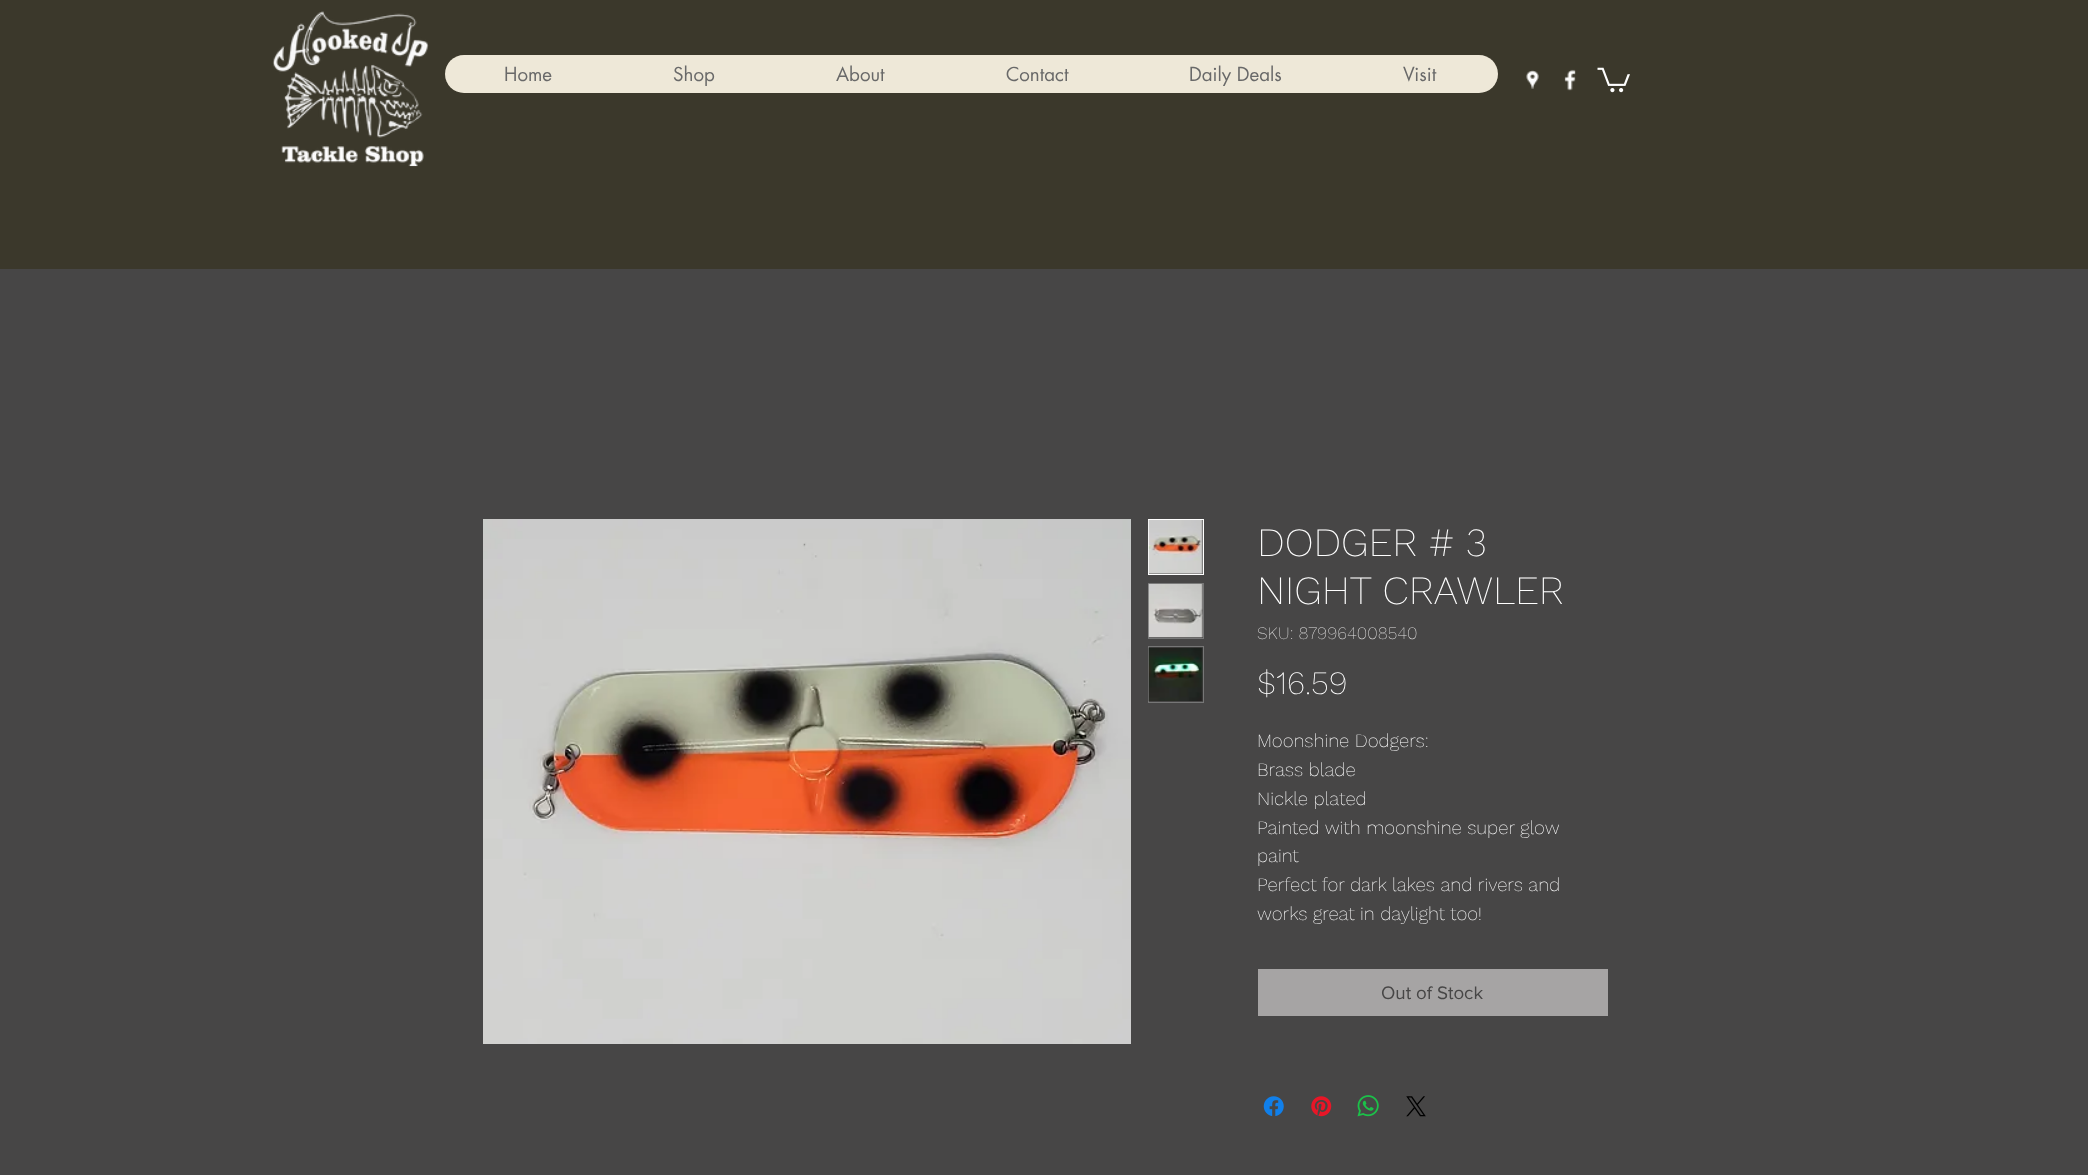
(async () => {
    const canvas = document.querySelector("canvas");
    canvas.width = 2088;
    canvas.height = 1175;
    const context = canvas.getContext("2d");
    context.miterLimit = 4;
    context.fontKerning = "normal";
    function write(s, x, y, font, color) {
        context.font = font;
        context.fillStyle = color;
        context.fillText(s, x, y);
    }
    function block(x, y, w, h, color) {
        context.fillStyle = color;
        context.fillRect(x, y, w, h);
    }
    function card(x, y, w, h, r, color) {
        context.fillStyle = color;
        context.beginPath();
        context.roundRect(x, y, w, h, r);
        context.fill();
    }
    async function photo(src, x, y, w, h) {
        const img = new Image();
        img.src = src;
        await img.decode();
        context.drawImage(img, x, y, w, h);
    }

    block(0, 0, 2088, 1175, "rgb(71, 70, 70)");
    block(0, 0, 2088, 269, "rgb(59, 56, 43)");
    await photo("media/1.png", 272, 11, 157, 156);
    card(445, 55, 1053, 38, 19, "rgb(238, 232, 216)");
    write("Home", 504, 81, "18.75px futura", "rgb(105, 105, 105)");
    write("Shop", 673, 81, "18.75px futura", "rgb(105, 105, 105)");
    write("About", 836, 81, "18.75px futura", "rgb(105, 105, 105)");
    write("Contact", 1006, 81, "18.75px futura", "rgb(105, 105, 105)");
    write("Daily Deals", 1189, 81, "18.75px futura", "rgb(105, 105, 105)");
    write("Visit", 1403, 81, "18.75px futura", "rgb(105, 105, 105)");
    await photo("media/2.png", 1526, 70, 13, 19);
    await photo("media/3.png", 1564, 69, 12, 22);
    await photo("media/4.png", 1597, 67, 33, 26);
    await photo("media/5.png", 483, 519, 648, 525);
    context.strokeStyle = "rgb(255, 255, 255)";
    context.strokeRect(1148.5, 519.5, 55, 55);
    await photo("media/6.png", 1148, 520, 55, 54);
    context.strokeStyle = "rgb(118, 118, 118)";
    context.strokeRect(1148.5, 583.5, 55, 55);
    await photo("media/7.png", 1148, 583, 55, 55);
    context.strokeRect(1148.5, 646.5, 55, 56);
    await photo("media/8.png", 1148, 647, 55, 54);
    write("DODGER # 3", 1257, 556, "200 40px Work Sans", "rgb(255, 255, 255)");
    write("NIGHT CRAWLER", 1257, 604, "200 40px Work Sans", "rgb(255, 255, 255)");
    write("SKU: 879964008540", 1257, 639, "200 17.5px Work Sans", "rgb(222, 221, 221)");
    write("$16.59", 1257, 694, "200 32.5px Work Sans", "rgb(255, 255, 255)");
    write("Moonshine Dodgers:", 1257, 747, "200 18.75px Work Sans", "rgb(255, 255, 255)");
    write("Brass blade", 1257, 776, "200 18.75px Work Sans", "rgb(255, 255, 255)");
    write("Nickle plated", 1257, 805, "200 18.75px Work Sans", "rgb(255, 255, 255)");
    write("Painted with moonshine super glow", 1257, 834, "200 18.75px Work Sans", "rgb(255, 255, 255)");
    write("paint", 1257, 862, "200 18.75px Work Sans", "rgb(255, 255, 255)");
    write("Perfect for dark lakes and rivers and", 1257, 891, "200 18.75px Work Sans", "rgb(255, 255, 255)");
    write("works great in daylight too!", 1257, 920, "200 18.75px Work Sans", "rgb(255, 255, 255)");
    block(1258, 969, 350, 47, "rgb(166, 164, 164)");
    write("Out of Stock", 1381, 999, "18.75px 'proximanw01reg'", "rgb(71, 70, 70)");
    await photo("media/9.png", 1263, 1096, 21, 21);
    await photo("media/10.png", 1311, 1096, 21, 21);
    await photo("media/11.png", 1357, 1095, 22, 22);
    await photo("media/12.png", 1406, 1096, 20, 21);
})();
